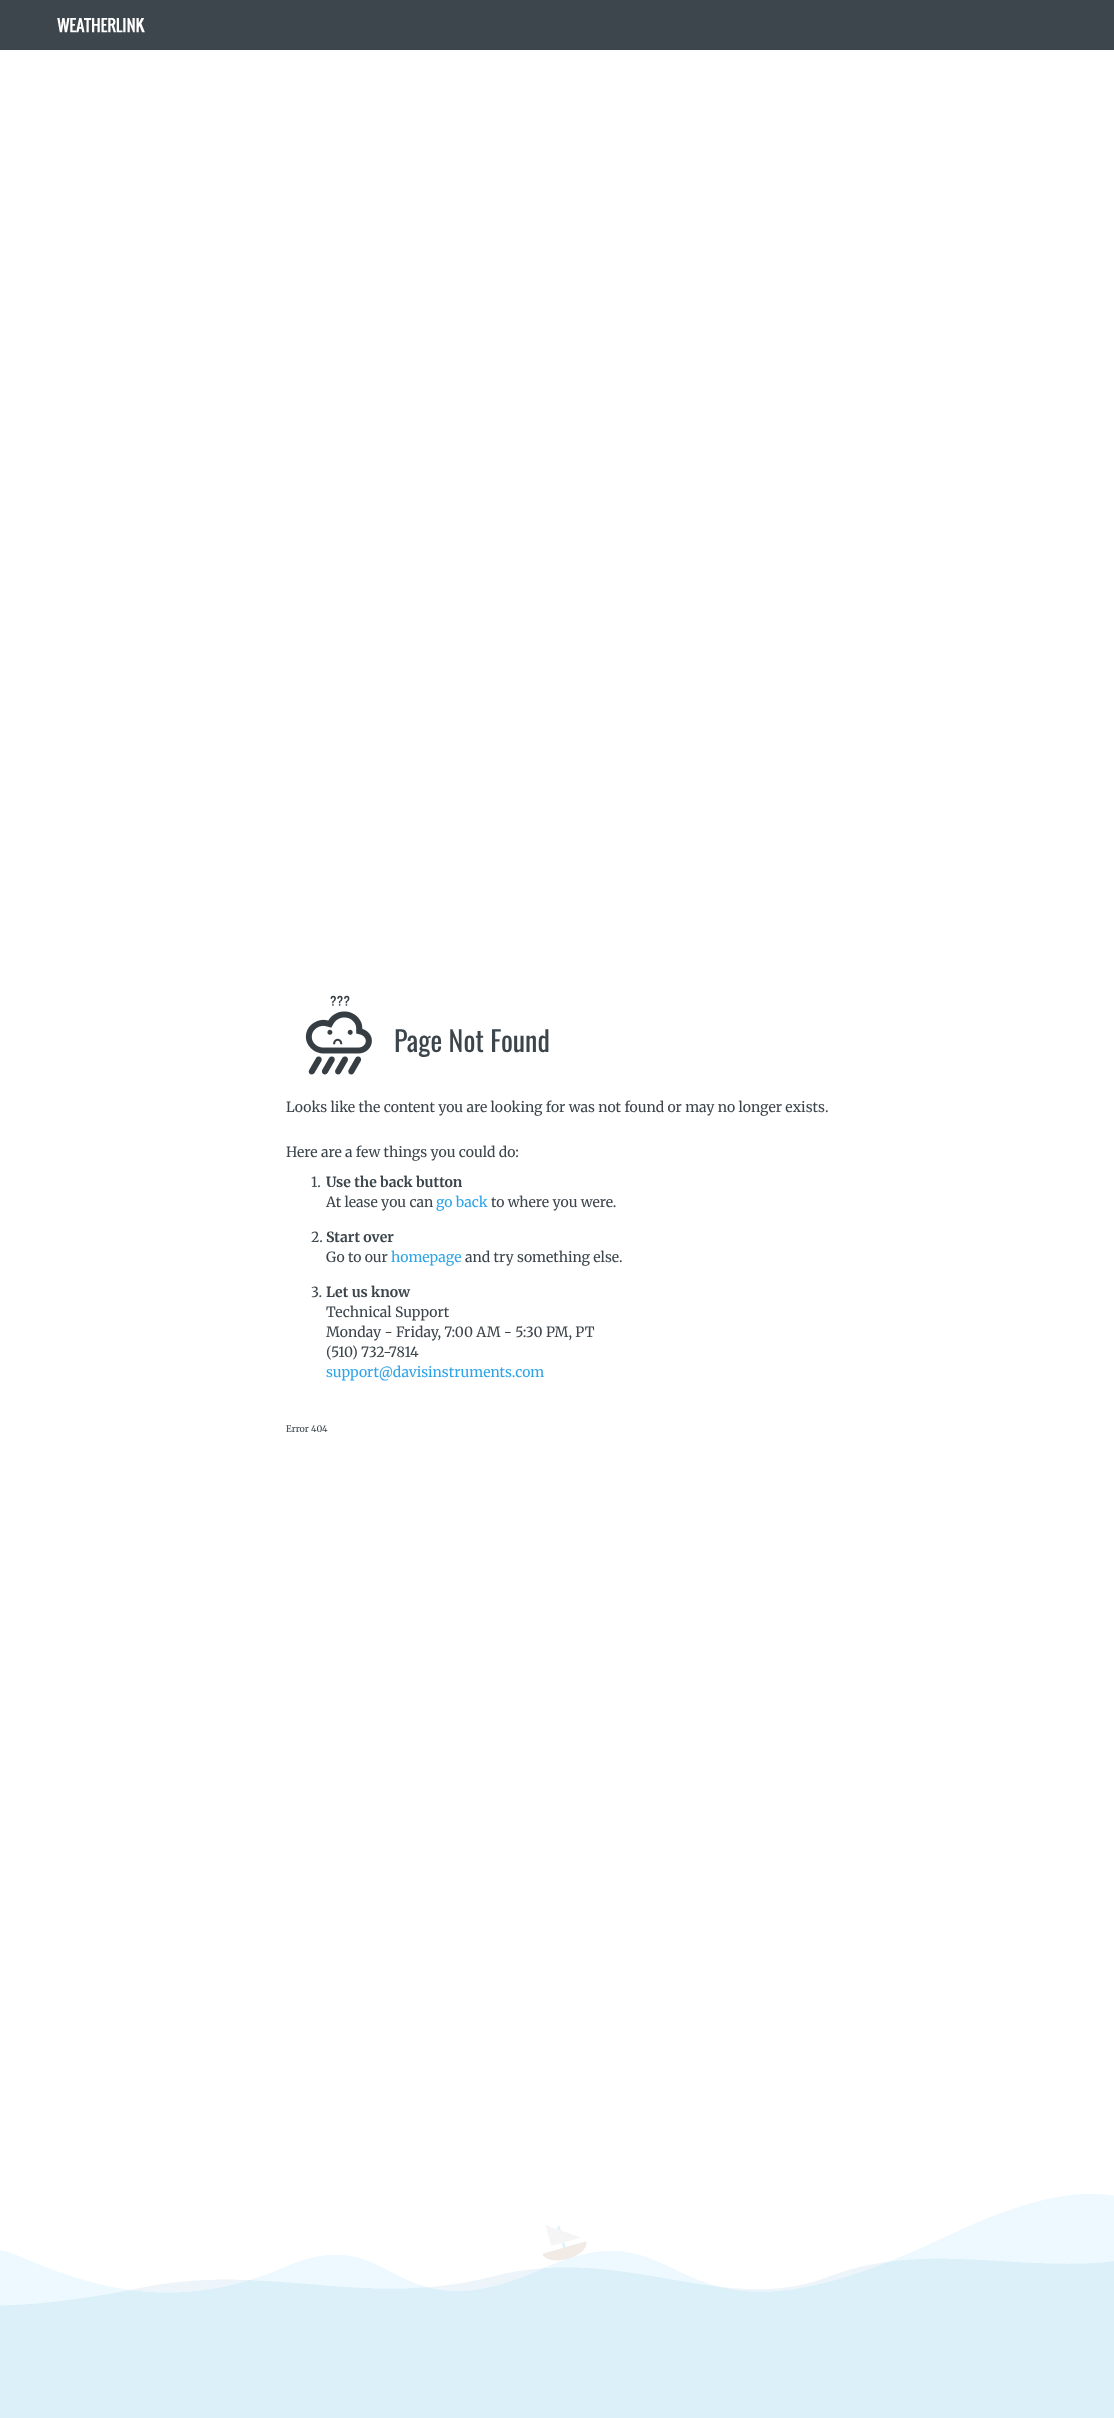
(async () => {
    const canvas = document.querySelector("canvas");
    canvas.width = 1114;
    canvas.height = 2418;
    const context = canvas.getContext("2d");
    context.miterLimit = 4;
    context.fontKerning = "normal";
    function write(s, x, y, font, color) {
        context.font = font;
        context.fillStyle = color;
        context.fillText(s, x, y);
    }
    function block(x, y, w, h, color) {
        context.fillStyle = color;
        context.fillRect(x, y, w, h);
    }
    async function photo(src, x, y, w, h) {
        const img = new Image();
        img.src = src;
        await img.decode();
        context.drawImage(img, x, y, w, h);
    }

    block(0, 0, 1114, 2418, "rgb(255, 255, 255)");
    block(0, 0, 1114, 50, "rgb(60, 70, 76)");
    await photo("media/1.png", 57, 18, 88, 15);
    await photo("media/2.png", 305, 995, 67, 80);
    write("Page Not Found", 394, 1052, "28px Oswald", "rgb(59, 69, 75)");
    write("Looks like the content you are looking for was not found or may no longer exists.", 286, 1112, "14px Merriweather", "rgb(59, 69, 75)");
    write("Here are a few things you could do:", 286, 1157, "14px Merriweather", "rgb(59, 69, 75)");
    write("1.", 311, 1187, "14px Merriweather", "rgb(59, 69, 75)");
    write("Use the back button", 326, 1187, "bold 14px Merriweather", "rgb(59, 69, 75)");
    write("At lease you can", 326, 1207, "14px Merriweather", "rgb(59, 69, 75)");
    write("go back", 436, 1207, "14px Merriweather", "rgb(47, 164, 231)");
    write("to where you were.", 491, 1207, "14px Merriweather", "rgb(59, 69, 75)");
    write("2.", 311, 1242, "14px Merriweather", "rgb(59, 69, 75)");
    write("Start over", 326, 1242, "bold 14px Merriweather", "rgb(59, 69, 75)");
    write("Go to our", 326, 1262, "14px Merriweather", "rgb(59, 69, 75)");
    write("homepage", 391, 1262, "14px Merriweather", "rgb(47, 164, 231)");
    write("and try something else.", 465, 1262, "14px Merriweather", "rgb(59, 69, 75)");
    write("3.", 311, 1297, "14px Merriweather", "rgb(59, 69, 75)");
    write("Let us know", 326, 1297, "bold 14px Merriweather", "rgb(59, 69, 75)");
    write("Technical Support", 326, 1317, "14px Merriweather", "rgb(59, 69, 75)");
    write("Monday - Friday, 7:00 AM - 5:30 PM, PT", 326, 1337, "14px Merriweather", "rgb(59, 69, 75)");
    write("(510) 732-7814", 326, 1357, "14px Merriweather", "rgb(59, 69, 75)");
    write("support@davisinstruments.com", 326, 1377, "14px Merriweather", "rgb(47, 164, 231)");
    write("Error 404", 286, 1432, "9px Merriweather", "rgb(59, 69, 75)");
    await photo("media/3.png", 0, 2194, 1114, 224);
})();
